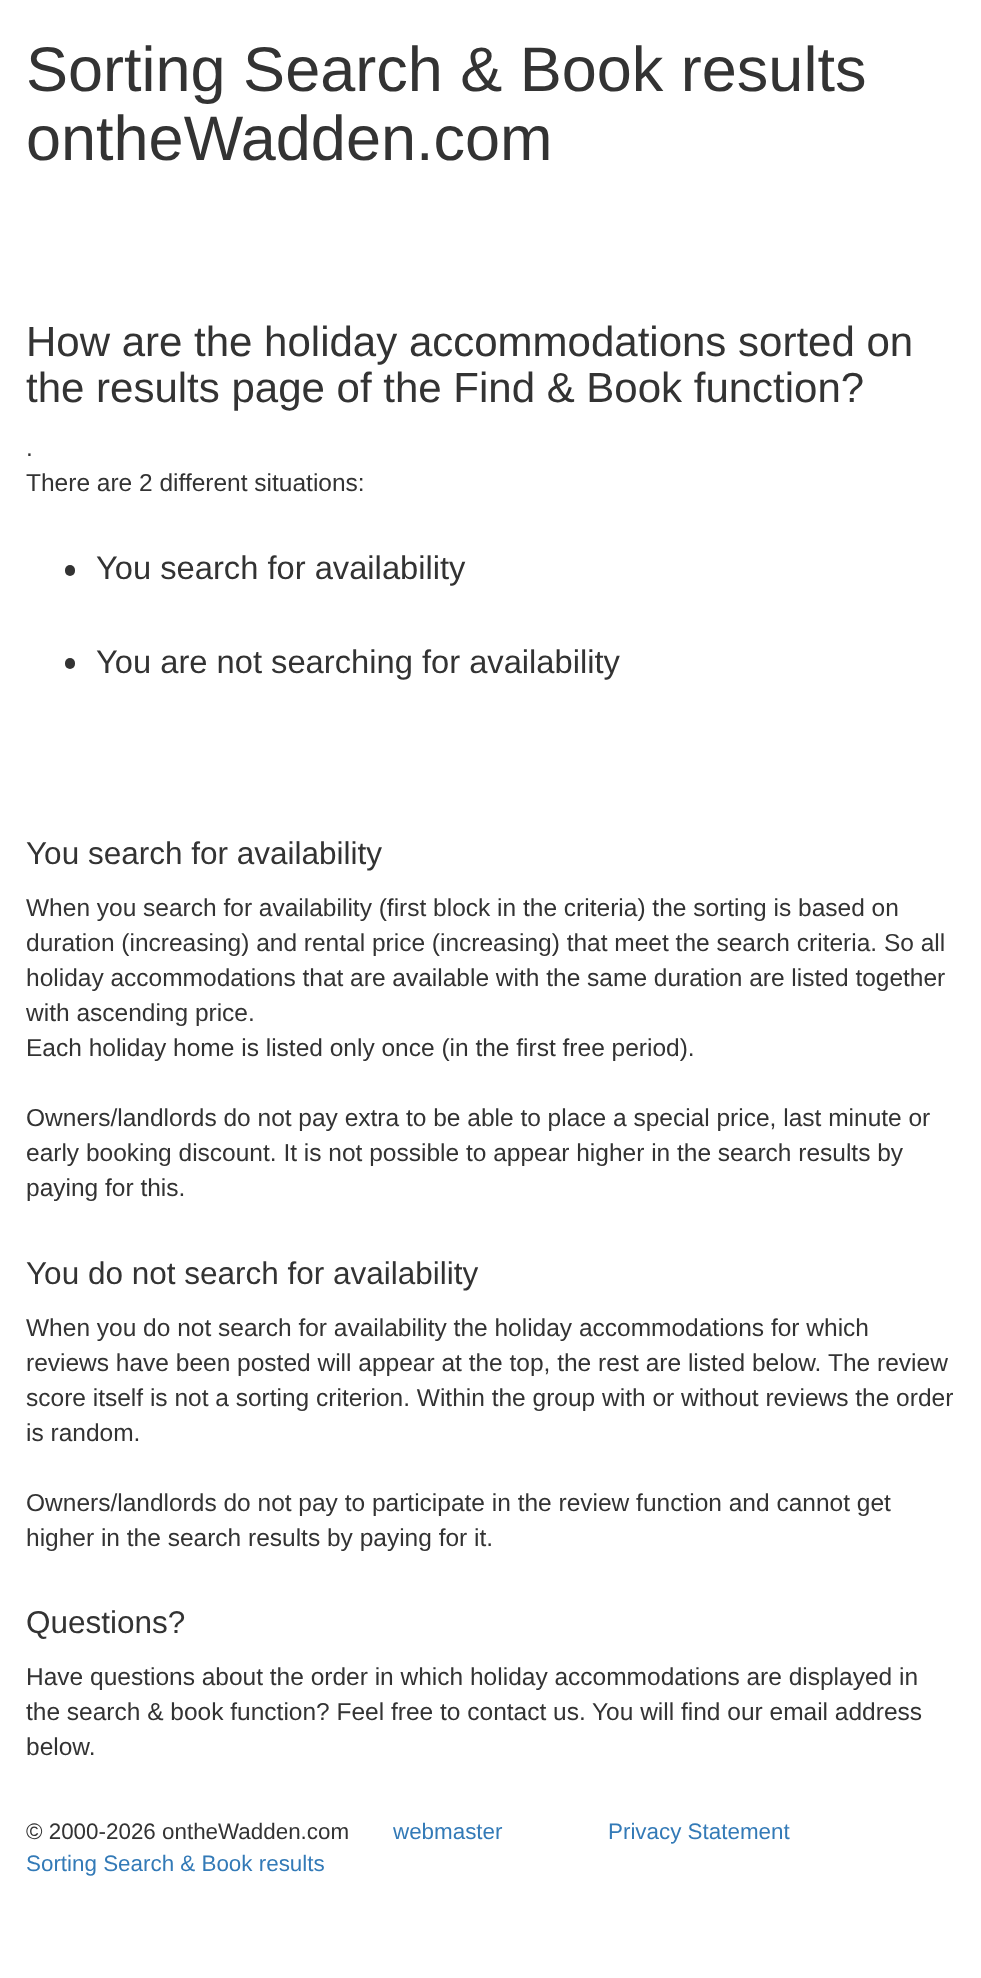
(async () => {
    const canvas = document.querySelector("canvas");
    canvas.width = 981;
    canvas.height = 1978;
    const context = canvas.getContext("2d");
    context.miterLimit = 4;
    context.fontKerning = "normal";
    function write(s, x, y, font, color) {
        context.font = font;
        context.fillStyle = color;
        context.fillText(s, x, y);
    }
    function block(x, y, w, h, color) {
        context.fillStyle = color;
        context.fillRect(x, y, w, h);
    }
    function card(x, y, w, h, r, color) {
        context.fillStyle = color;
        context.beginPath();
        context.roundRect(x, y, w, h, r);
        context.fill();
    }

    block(0, 0, 981, 1978, "rgb(255, 255, 255)");
    write("Sorting Search & Book results", 26, 91, "63px Liberation Sans", "rgb(51, 51, 51)");
    write("ontheWadden.com", 26, 160, "63px Liberation Sans", "rgb(51, 51, 51)");
    write("How are the holiday accommodations sorted on", 26, 356, "42px Liberation Sans", "rgb(51, 51, 51)");
    write("the results page of the Find & Book function?", 26, 402, "42px Liberation Sans", "rgb(51, 51, 51)");
    write(".", 26, 456, "24.5px Liberation Sans", "rgb(51, 51, 51)");
    write("There are 2 different situations:", 26, 491, "24.5px Liberation Sans", "rgb(51, 51, 51)");
    card(65, 565, 10, 11, 5, "rgb(51, 51, 51)");
    write("You search for availability", 96, 579, "32.7px Liberation Sans", "rgb(51, 51, 51)");
    card(65, 658, 10, 11, 5, "rgb(51, 51, 51)");
    write("You are not searching for availability", 96, 673, "32.7px Liberation Sans", "rgb(51, 51, 51)");
    write("You search for availability", 26, 864, "31.5px Liberation Sans", "rgb(51, 51, 51)");
    write("When you search for availability (first block in the criteria) the sorting is based on", 26, 916, "24.5px Liberation Sans", "rgb(51, 51, 51)");
    write("duration (increasing) and rental price (increasing) that meet the search criteria. So all", 26, 951, "24.5px Liberation Sans", "rgb(51, 51, 51)");
    write("holiday accommodations that are available with the same duration are listed together", 26, 986, "24.5px Liberation Sans", "rgb(51, 51, 51)");
    write("with ascending price.", 26, 1021, "24.5px Liberation Sans", "rgb(51, 51, 51)");
    write("Each holiday home is listed only once (in the first free period).", 26, 1056, "24.5px Liberation Sans", "rgb(51, 51, 51)");
    write("Owners/landlords do not pay extra to be able to place a special price, last minute or", 26, 1126, "24.5px Liberation Sans", "rgb(51, 51, 51)");
    write("early booking discount. It is not possible to appear higher in the search results by", 26, 1161, "24.5px Liberation Sans", "rgb(51, 51, 51)");
    write("paying for this.", 26, 1196, "24.5px Liberation Sans", "rgb(51, 51, 51)");
    write("You do not search for availability", 26, 1284, "31.5px Liberation Sans", "rgb(51, 51, 51)");
    write("When you do not search for availability the holiday accommodations for which", 26, 1336, "24.5px Liberation Sans", "rgb(51, 51, 51)");
    write("reviews have been posted will appear at the top, the rest are listed below.", 26, 1371, "24.5px Liberation Sans", "rgb(51, 51, 51)");
    write("The review", 828, 1371, "24.5px Liberation Sans", "rgb(51, 51, 51)");
    write("score itself is not a sorting criterion. Within the group with or without reviews the order", 26, 1406, "24.5px Liberation Sans", "rgb(51, 51, 51)");
    write("is random.", 26, 1441, "24.5px Liberation Sans", "rgb(51, 51, 51)");
    write("Owners/landlords do not pay to participate in the review function and cannot get", 26, 1511, "24.5px Liberation Sans", "rgb(51, 51, 51)");
    write("higher in the search results by paying for it.", 26, 1546, "24.5px Liberation Sans", "rgb(51, 51, 51)");
    write("Questions?", 26, 1633, "31.5px Liberation Sans", "rgb(51, 51, 51)");
    write("Have questions about the order in which holiday accommodations are displayed in", 26, 1685, "24.5px Liberation Sans", "rgb(51, 51, 51)");
    write("the search & book function? Feel free to contact us.", 26, 1720, "24.5px Liberation Sans", "rgb(51, 51, 51)");
    write("You will find our email address", 592, 1720, "24.5px Liberation Sans", "rgb(51, 51, 51)");
    write("below.", 26, 1755, "24.5px Liberation Sans", "rgb(51, 51, 51)");
    write("© 2000-2026 ontheWadden.com", 26, 1839, "22.4px Liberation Sans", "rgb(51, 51, 51)");
    write("webmaster", 393, 1839, "22.4px Liberation Sans", "rgb(51, 122, 183)");
    write("Privacy Statement", 608, 1839, "22.4px Liberation Sans", "rgb(51, 122, 183)");
    write("Sorting Search & Book results", 26, 1871, "22.4px Liberation Sans", "rgb(51, 122, 183)");
})();
